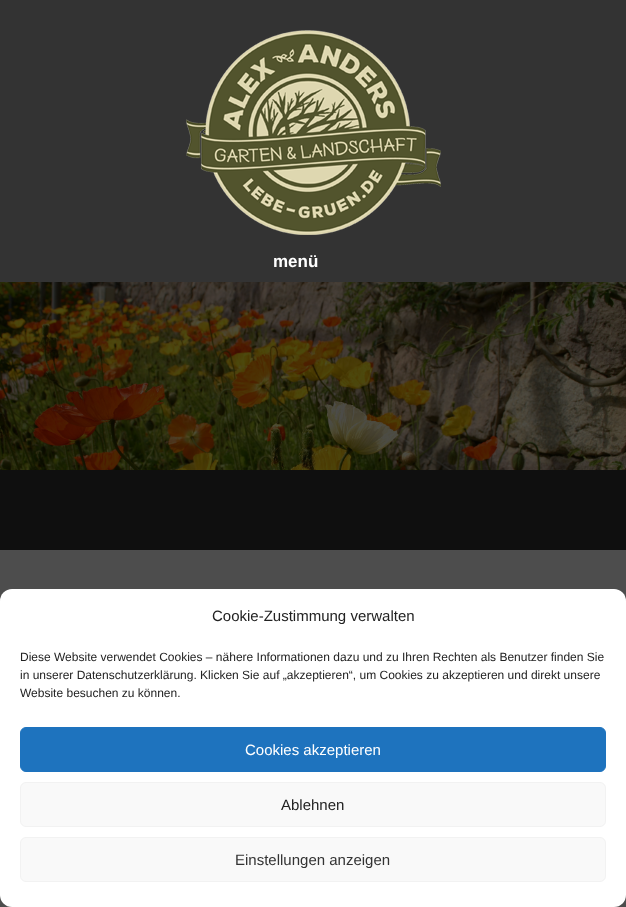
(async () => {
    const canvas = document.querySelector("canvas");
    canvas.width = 626;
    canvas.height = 907;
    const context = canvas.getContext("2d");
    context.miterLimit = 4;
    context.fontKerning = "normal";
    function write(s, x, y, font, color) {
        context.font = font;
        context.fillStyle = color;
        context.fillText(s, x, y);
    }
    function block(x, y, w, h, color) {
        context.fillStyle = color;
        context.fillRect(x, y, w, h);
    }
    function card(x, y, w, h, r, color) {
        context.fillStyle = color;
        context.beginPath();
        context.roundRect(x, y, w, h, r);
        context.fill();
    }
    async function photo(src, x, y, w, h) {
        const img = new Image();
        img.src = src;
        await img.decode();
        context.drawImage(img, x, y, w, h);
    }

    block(0, 0, 626, 907, "rgb(77, 77, 77)");
    block(0, 0, 626, 282, "rgb(51, 51, 51)");
    await photo("media/1.png", 186, 30, 255, 205);
    write("menü", 273, 267, "bold 17px Liberation Sans", "rgb(255, 255, 255)");
    await photo("media/2.png", 0, 282, 626, 188);
    block(0, 470, 626, 80, "rgb(15, 15, 15)");
    card(0, 589, 626, 318, 12, "rgb(255, 255, 255)");
    write("Cookie-Zustimmung verwalten", 212, 621, "15px Liberation Sans", "rgb(34, 34, 34)");
    write("Diese Website verwendet Cookies – nähere Informationen dazu und zu Ihren Rechten als Benutzer finden Sie", 20, 661, "12px Liberation Sans", "rgb(34, 34, 34)");
    write("in unserer Datenschutzerklärung. Klicken Sie auf „akzeptieren“, um Cookies zu akzeptieren und direkt unsere", 20, 679, "12px Liberation Sans", "rgb(34, 34, 34)");
    write("Website besuchen zu können.", 20, 697, "12px Liberation Sans", "rgb(34, 34, 34)");
    context.fillStyle = "rgb(30, 115, 190)";
    context.beginPath();
    context.roundRect(20.5, 727.5, 585, 44, 5.5);
    context.fill();
    context.strokeStyle = "rgb(30, 115, 190)";
    context.stroke();
    write("Cookies akzeptieren", 245, 755, "15px Liberation Sans", "rgb(255, 255, 255)");
    context.fillStyle = "rgb(249, 249, 249)";
    context.beginPath();
    context.roundRect(20.5, 782.5, 585, 44, 5.5);
    context.fill();
    context.strokeStyle = "rgb(242, 242, 242)";
    context.stroke();
    write("Ablehnen", 281, 810, "15px Liberation Sans", "rgb(34, 34, 34)");
    context.fillStyle = "rgb(249, 249, 249)";
    context.beginPath();
    context.roundRect(20.5, 837.5, 585, 44, 5.5);
    context.fill();
    context.stroke();
    write("Einstellungen anzeigen", 235, 865, "15px Liberation Sans", "rgb(51, 51, 51)");
})();
